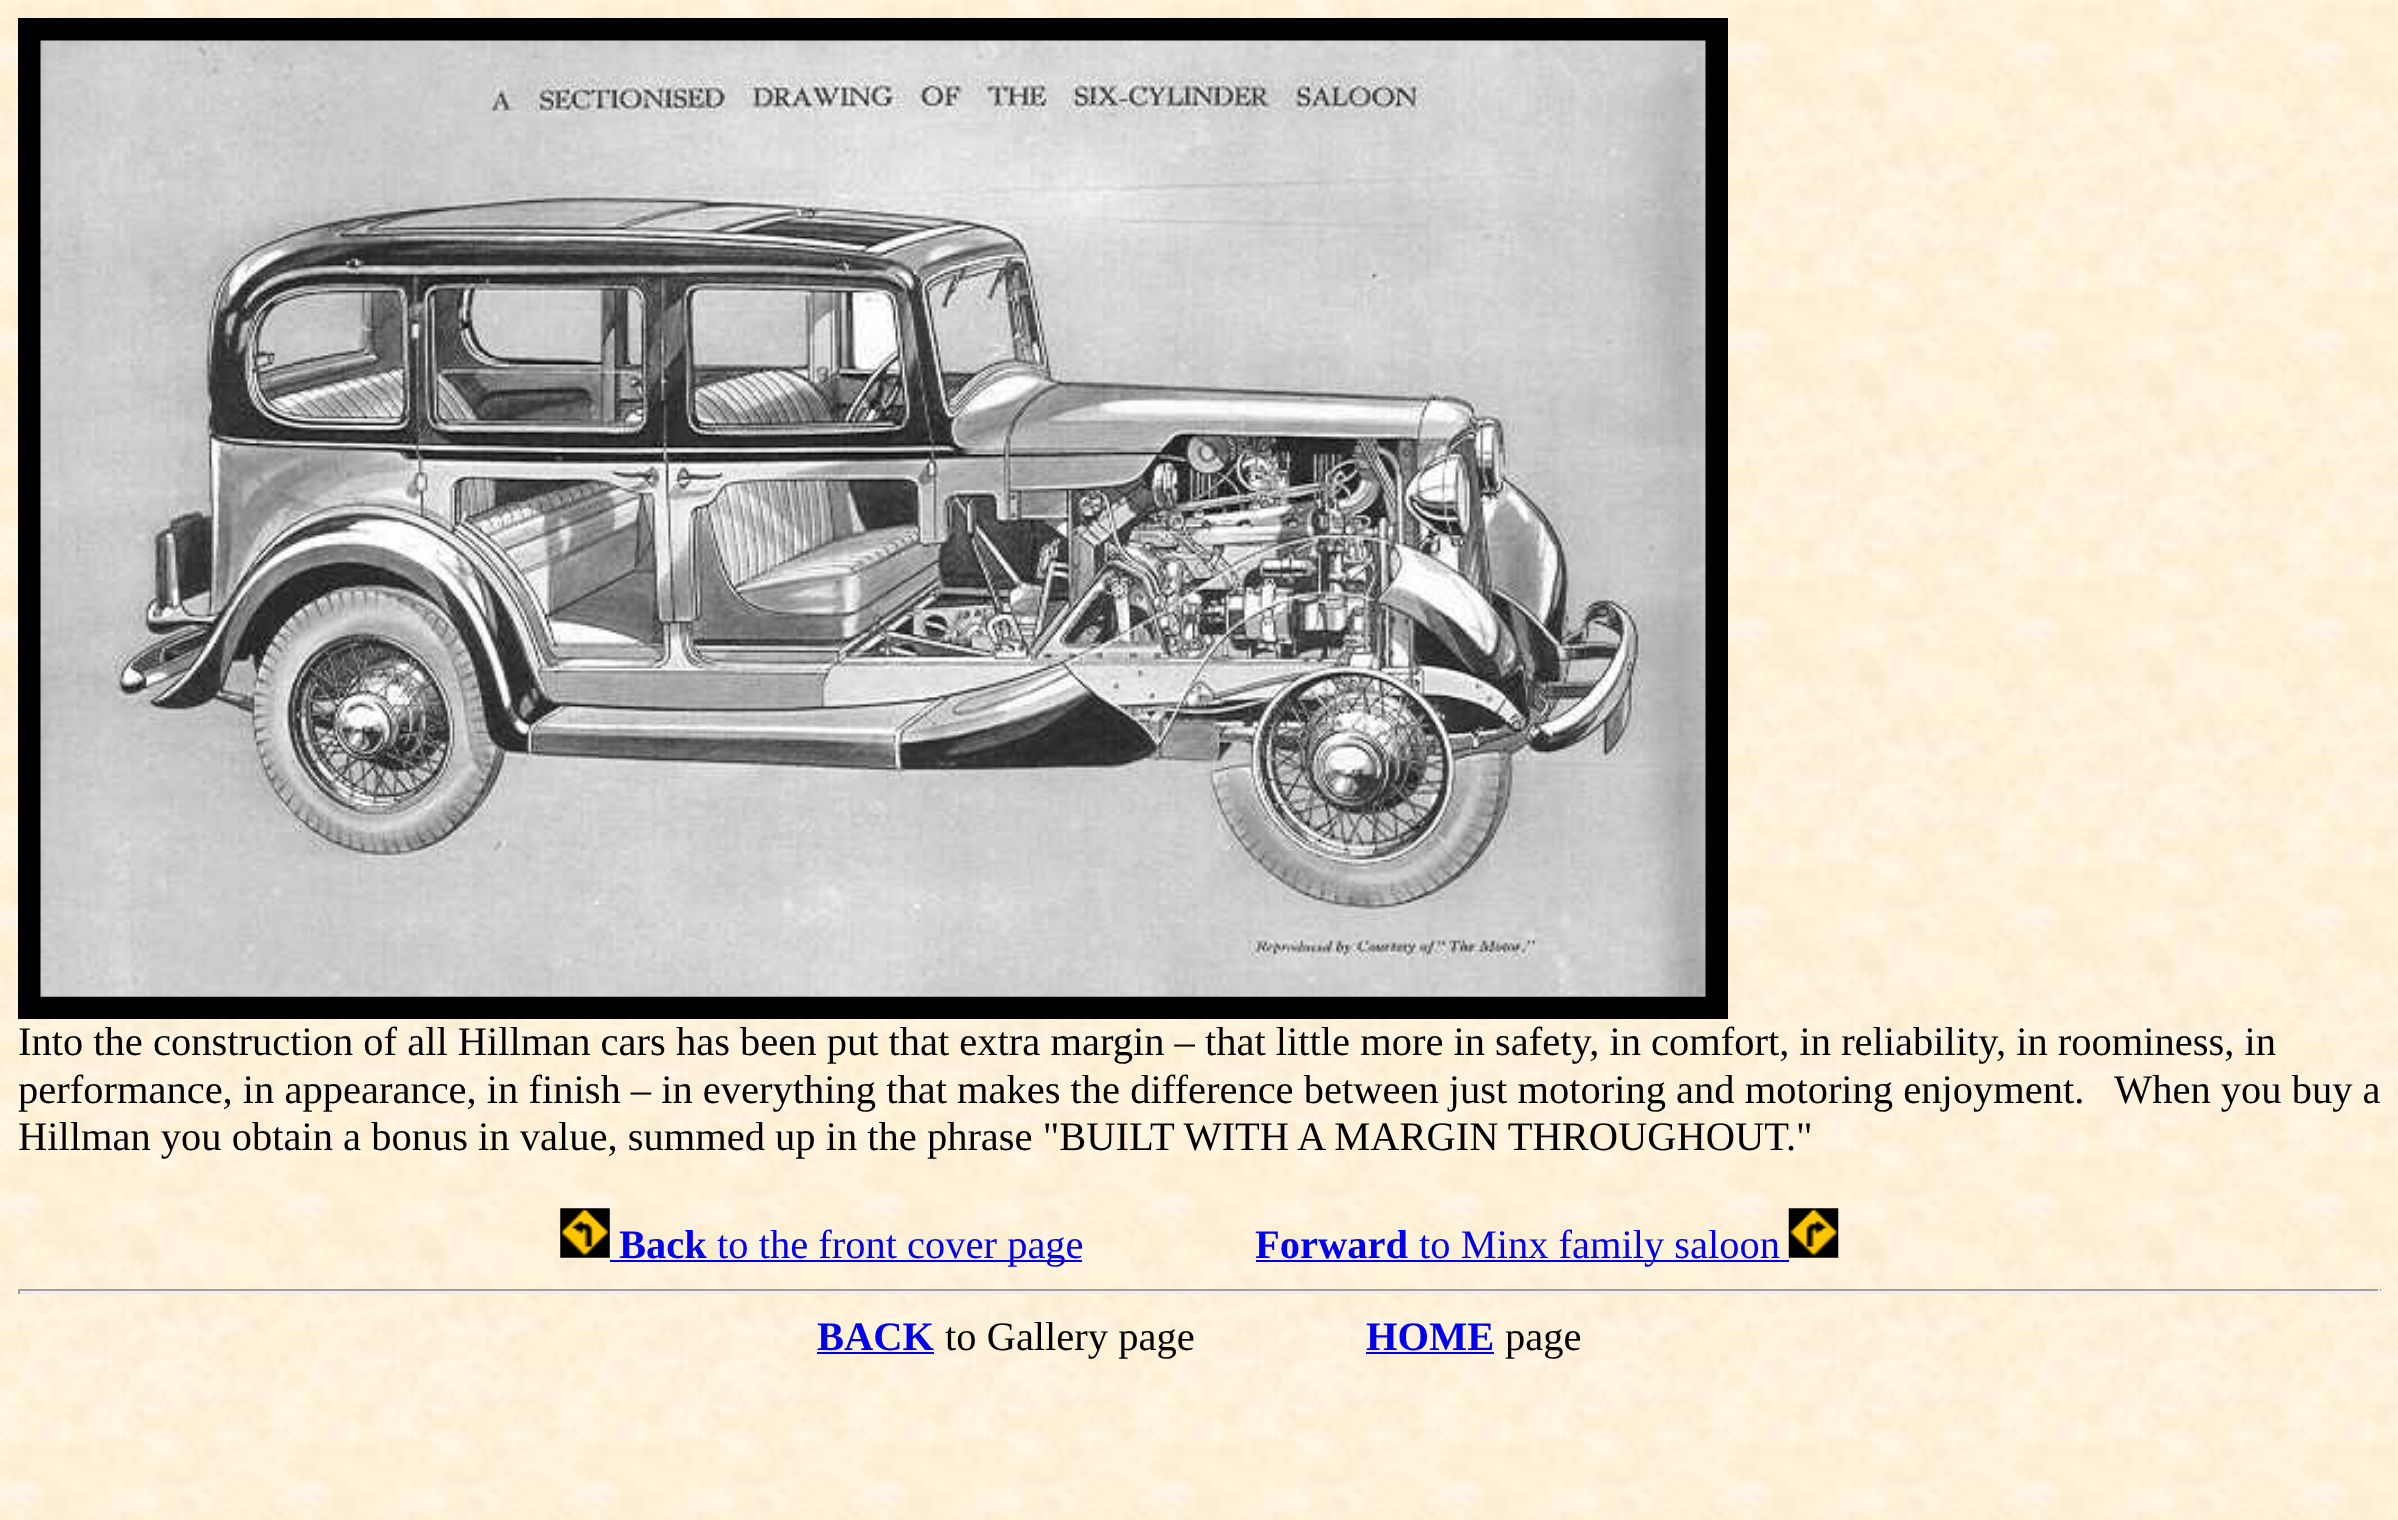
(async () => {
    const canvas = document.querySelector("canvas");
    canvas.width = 2398;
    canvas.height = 1520;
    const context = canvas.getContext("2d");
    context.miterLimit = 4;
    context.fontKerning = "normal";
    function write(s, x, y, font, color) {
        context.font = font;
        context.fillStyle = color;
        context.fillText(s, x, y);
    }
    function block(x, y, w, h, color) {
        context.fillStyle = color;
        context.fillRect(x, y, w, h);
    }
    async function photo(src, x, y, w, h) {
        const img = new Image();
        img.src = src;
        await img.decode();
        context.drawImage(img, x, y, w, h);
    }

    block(0, 0, 2398, 1520, "rgb(255, 255, 255)");
    await photo("media/1.png", 0, 0, 2398, 1520);
    context.strokeStyle = "rgb(0, 0, 0)";
    context.lineWidth = 23;
    context.strokeRect(29.5, 29.5, 1687, 978);
    await photo("media/2.png", 40, 40, 1666, 957);
    write("Into the construction of all Hillman cars has been put that extra margin – that little more in safety, in comfort, in reliability, in roominess, in", 18, 1055, "40.5px Liberation Serif", "rgb(0, 0, 0)");
    write("performance, in appearance, in finish – in everything that makes the difference between just motoring and motoring enjoyment.   When you buy a", 18, 1103, "40.5px Liberation Serif", "rgb(0, 0, 0)");
    write("Hillman you obtain a bonus in value, summed up in the phrase \"BUILT WITH A MARGIN THROUGHOUT.\"", 18, 1150, "40.5px Liberation Serif", "rgb(0, 0, 0)");
    await photo("media/3.png", 560, 1208, 50, 50);
    write("Back", 619, 1258, "bold 40.5px Liberation Serif", "rgb(0, 0, 238)");
    block(610, 1260, 472, 2, "rgb(0, 0, 238)");
    write("to the front cover page", 717, 1258, "40.5px Liberation Serif", "rgb(0, 0, 238)");
    write("Forward", 1255, 1258, "bold 40.5px Liberation Serif", "rgb(0, 0, 238)");
    block(1256, 1260, 533, 2, "rgb(0, 0, 238)");
    write("to Minx family saloon", 1419, 1258, "40.5px Liberation Serif", "rgb(0, 0, 238)");
    await photo("media/4.png", 1788, 1208, 51, 50);
    block(18, 1289, 2363, 2, "rgb(159, 159, 159)");
    block(2378, 1289, 2, 5, "rgb(238, 238, 238)");
    block(18, 1292, 2363, 2, "rgb(238, 238, 238)");
    block(18, 1289, 2, 5, "rgb(159, 159, 159)");
    write("BACK", 817, 1350, "bold 40.5px Liberation Serif", "rgb(0, 0, 238)");
    block(817, 1352, 117, 2, "rgb(0, 0, 238)");
    write("to Gallery page", 945, 1350, "40.5px Liberation Serif", "rgb(0, 0, 0)");
    write("HOME", 1366, 1350, "bold 40.5px Liberation Serif", "rgb(0, 0, 238)");
    block(1366, 1352, 128, 2, "rgb(0, 0, 238)");
    write("page", 1505, 1350, "40.5px Liberation Serif", "rgb(0, 0, 0)");
})();
